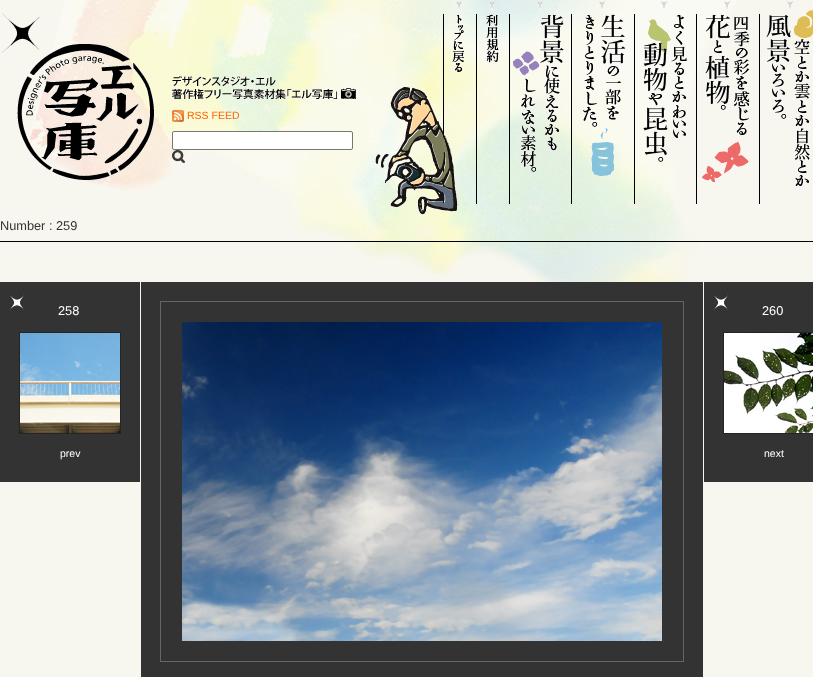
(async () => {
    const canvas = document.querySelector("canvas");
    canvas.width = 813;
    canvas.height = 677;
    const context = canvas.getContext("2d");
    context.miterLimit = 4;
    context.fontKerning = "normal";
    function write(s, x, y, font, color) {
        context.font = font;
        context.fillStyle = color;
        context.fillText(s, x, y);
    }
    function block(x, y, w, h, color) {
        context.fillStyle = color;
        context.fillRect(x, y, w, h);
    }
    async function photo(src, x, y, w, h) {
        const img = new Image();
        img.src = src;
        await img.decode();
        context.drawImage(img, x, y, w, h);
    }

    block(0, 0, 813, 677, "rgb(248, 247, 239)");
    await photo("media/1.png", 12, 0, 724, 317);
    await photo("media/2.png", 2, 13, 152, 167);
    await photo("media/3.png", 172, 76, 184, 23);
    await photo("media/4.png", 172, 110, 12, 12);
    write("RSS FEED", 187, 119, "10.5px Liberation Sans", "rgb(255, 102, 0)");
    context.fillStyle = "rgb(255, 255, 255)";
    context.beginPath();
    context.roundRect(172.5, 131.5, 180, 18, 1.5);
    context.fill();
    context.strokeStyle = "rgb(118, 118, 118)";
    context.stroke();
    await photo("media/5.png", 172, 150, 13, 13);
    await photo("media/6.png", 375, 87, 83, 128);
    await photo("media/7.png", 443, 1, 34, 203);
    await photo("media/8.png", 486, 1, 24, 203);
    await photo("media/9.png", 513, 1, 59, 203);
    await photo("media/10.png", 583, 1, 52, 203);
    await photo("media/11.png", 643, 1, 54, 203);
    await photo("media/12.png", 701, 1, 59, 203);
    await photo("media/13.png", 766, 1, 47, 185);
    block(0, 241, 813, 1, "rgb(0, 0, 0)");
    write("Number : 259", 0, 230, "12.75px Liberation Sans", "rgb(51, 51, 51)");
    await photo("media/14.png", 0, 282, 140, 200);
    write("258", 58, 315, "12.75px Liberation Sans", "rgb(255, 255, 255)");
    context.strokeStyle = "rgb(36, 36, 36)";
    context.strokeRect(19.5, 332.5, 101, 101);
    await photo("media/15.png", 20, 333, 100, 100);
    write("prev", 60, 457, "10.5px Liberation Sans", "rgb(255, 255, 255)");
    block(141, 282, 562, 395, "rgb(51, 51, 51)");
    context.strokeStyle = "rgb(102, 102, 102)";
    context.strokeRect(160.5, 301.5, 523, 360);
    await photo("media/16.png", 182, 322, 480, 319);
    await photo("media/17.png", 704, 282, 109, 200);
    write("260", 762, 315, "12.75px Liberation Sans", "rgb(255, 255, 255)");
    context.strokeStyle = "rgb(36, 36, 36)";
    context.strokeRect(723.5, 332.5, 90, 101);
    await photo("media/18.png", 724, 333, 89, 100);
    write("next", 764, 457, "10.5px Liberation Sans", "rgb(255, 255, 255)");
})();
